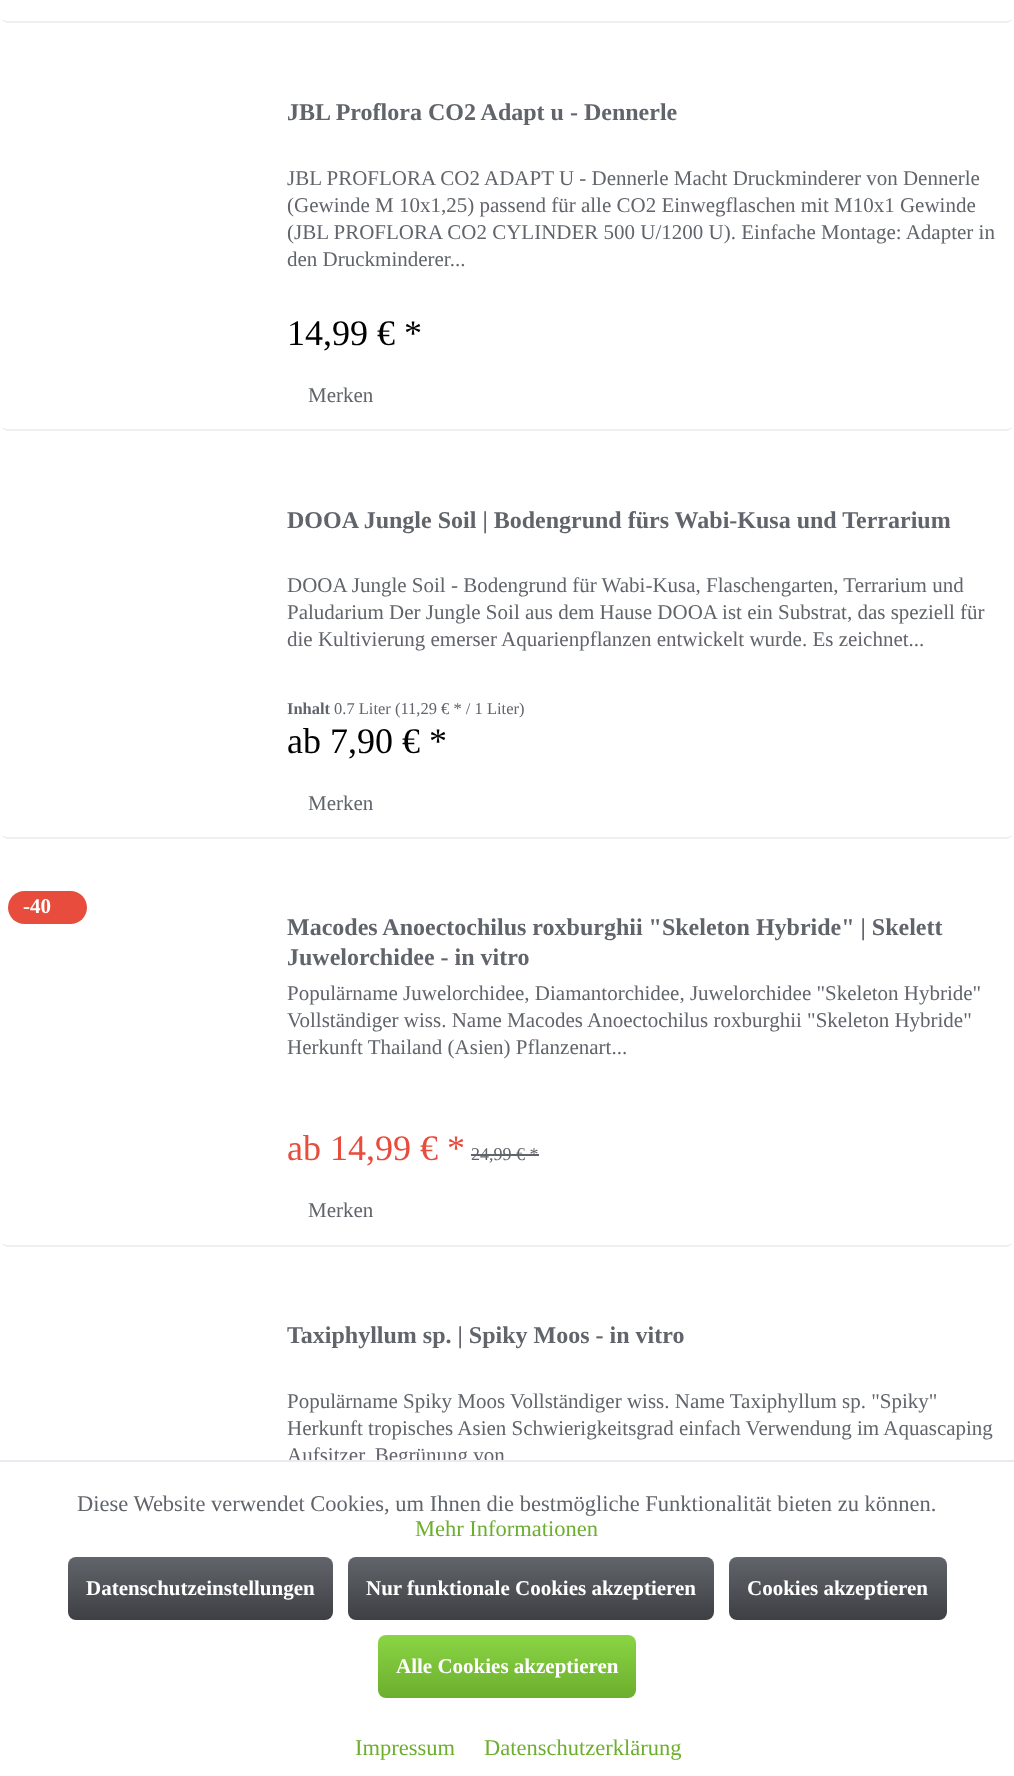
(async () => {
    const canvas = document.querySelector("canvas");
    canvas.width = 1014;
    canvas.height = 1776;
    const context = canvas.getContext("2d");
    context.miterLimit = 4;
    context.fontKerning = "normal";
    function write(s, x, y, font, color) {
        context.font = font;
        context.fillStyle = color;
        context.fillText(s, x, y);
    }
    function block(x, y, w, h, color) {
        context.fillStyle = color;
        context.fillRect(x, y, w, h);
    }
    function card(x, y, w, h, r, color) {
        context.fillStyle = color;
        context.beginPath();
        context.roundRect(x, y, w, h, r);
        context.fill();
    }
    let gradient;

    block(0, 0, 1014, 1776, "rgb(255, 255, 255)");
    context.beginPath();
    context.moveTo(1011.5, 20);
    context.bezierCurveTo(1010, 21, 1008.5, 22, 1006.5, 22);
    context.lineTo(7.5, 22);
    context.bezierCurveTo(5.5, 22, 4, 21, 2.5, 20);
    context.strokeStyle = "rgb(234, 234, 240)";
    context.lineWidth = 1.5;
    context.stroke();
    context.beginPath();
    context.moveTo(2.5, 20);
    context.bezierCurveTo(1.5, 18.5, 1, 17, 1, 15);
    context.lineTo(1, -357);
    context.bezierCurveTo(1, -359, 1.5, -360.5, 2.5, -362);
    context.bezierCurveTo(4, -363, 5.5, -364, 7.5, -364);
    context.lineTo(1006.5, -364);
    context.bezierCurveTo(1008.5, -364, 1010, -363, 1011.5, -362);
    context.bezierCurveTo(1012.5, -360.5, 1013, -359, 1013, -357);
    context.lineTo(1013, 15);
    context.bezierCurveTo(1013, 17, 1012.5, 18.5, 1011.5, 20);
    context.strokeStyle = "rgb(255, 255, 255)";
    context.stroke();
    context.beginPath();
    context.moveTo(1011.5, 428);
    context.bezierCurveTo(1010, 429, 1008.5, 430, 1006.5, 430);
    context.lineTo(7.5, 430);
    context.bezierCurveTo(5.5, 430, 4, 429, 2.5, 428);
    context.strokeStyle = "rgb(234, 234, 240)";
    context.stroke();
    context.beginPath();
    context.moveTo(2.5, 428);
    context.bezierCurveTo(1.5, 426.5, 1, 425, 1, 423);
    context.lineTo(1, 51);
    context.bezierCurveTo(1, 49, 1.5, 47.5, 2.5, 46);
    context.bezierCurveTo(4, 45, 5.5, 44, 7.5, 44);
    context.lineTo(1006.5, 44);
    context.bezierCurveTo(1008.5, 44, 1010, 45, 1011.5, 46);
    context.bezierCurveTo(1012.5, 47.5, 1013, 49, 1013, 51);
    context.lineTo(1013, 423);
    context.bezierCurveTo(1013, 425, 1012.5, 426.5, 1011.5, 428);
    context.strokeStyle = "rgb(255, 255, 255)";
    context.stroke();
    write("JBL Proflora CO2 Adapt u - Dennerle", 287, 120, "bold 24px Liberation Serif", "rgb(97, 101, 107)");
    write("JBL PROFLORA CO2 ADAPT U - Dennerle Macht Druckminderer von Dennerle", 287, 185, "21px Liberation Serif", "rgb(97, 101, 107)");
    write("(Gewinde M 10x1,25) passend für alle CO2 Einwegflaschen mit M10x1 Gewinde", 287, 212, "21px Liberation Serif", "rgb(97, 101, 107)");
    write("(JBL PROFLORA CO2 CYLINDER 500 U/1200 U). Einfache Montage: Adapter in", 287, 239, "21px Liberation Serif", "rgb(97, 101, 107)");
    write("den Druckminderer...", 287, 266, "21px Liberation Serif", "rgb(97, 101, 107)");
    write("14,99 € *", 287, 345, "36px Liberation Serif", "rgb(0, 0, 0)");
    write("Merken", 308, 402, "21px Liberation Serif", "rgb(97, 101, 107)");
    context.beginPath();
    context.moveTo(1011.5, 836);
    context.bezierCurveTo(1010, 837, 1008.5, 838, 1006.5, 838);
    context.lineTo(7.5, 838);
    context.bezierCurveTo(5.5, 838, 4, 837, 2.5, 836);
    context.strokeStyle = "rgb(234, 234, 240)";
    context.stroke();
    context.beginPath();
    context.moveTo(2.5, 836);
    context.bezierCurveTo(1.5, 834.5, 1, 833, 1, 831);
    context.lineTo(1, 459);
    context.bezierCurveTo(1, 457, 1.5, 455.5, 2.5, 454);
    context.bezierCurveTo(4, 453, 5.5, 452, 7.5, 452);
    context.lineTo(1006.5, 452);
    context.bezierCurveTo(1008.5, 452, 1010, 453, 1011.5, 454);
    context.bezierCurveTo(1012.5, 455.5, 1013, 457, 1013, 459);
    context.lineTo(1013, 831);
    context.bezierCurveTo(1013, 833, 1012.5, 834.5, 1011.5, 836);
    context.strokeStyle = "rgb(255, 255, 255)";
    context.stroke();
    write("DOOA Jungle Soil | Bodengrund fürs Wabi-Kusa und Terrarium", 287, 528, "bold 24px Liberation Serif", "rgb(97, 101, 107)");
    write("DOOA Jungle Soil - Bodengrund für Wabi-Kusa, Flaschengarten, Terrarium und", 287, 592, "21px Liberation Serif", "rgb(97, 101, 107)");
    write("Paludarium Der Jungle Soil aus dem Hause DOOA ist ein Substrat, das speziell für", 287, 619, "21px Liberation Serif", "rgb(97, 101, 107)");
    write("die Kultivierung emerser Aquarienpflanzen entwickelt wurde. Es zeichnet...", 287, 646, "21px Liberation Serif", "rgb(97, 101, 107)");
    write("Inhalt", 287, 714, "bold 16.5px Liberation Serif", "rgb(97, 101, 107)");
    write("0.7 Liter (11,29 € * / 1 Liter)", 334, 714, "16.5px Liberation Serif", "rgb(97, 101, 107)");
    write("ab 7,90 € *", 287, 753, "36px Liberation Serif", "rgb(0, 0, 0)");
    write("Merken", 308, 810, "21px Liberation Serif", "rgb(97, 101, 107)");
    context.beginPath();
    context.moveTo(1011.5, 1244);
    context.bezierCurveTo(1010, 1245, 1008.5, 1246, 1006.5, 1246);
    context.lineTo(7.5, 1246);
    context.bezierCurveTo(5.5, 1246, 4, 1245, 2.5, 1244);
    context.strokeStyle = "rgb(234, 234, 240)";
    context.stroke();
    context.beginPath();
    context.moveTo(2.5, 1244);
    context.bezierCurveTo(1.5, 1242.5, 1, 1241, 1, 1239);
    context.lineTo(1, 867);
    context.bezierCurveTo(1, 865, 1.5, 863.5, 2.5, 862);
    context.bezierCurveTo(4, 861, 5.5, 860, 7.5, 860);
    context.lineTo(1006.5, 860);
    context.bezierCurveTo(1008.5, 860, 1010, 861, 1011.5, 862);
    context.bezierCurveTo(1012.5, 863.5, 1013, 865, 1013, 867);
    context.lineTo(1013, 1239);
    context.bezierCurveTo(1013, 1241, 1012.5, 1242.5, 1011.5, 1244);
    context.strokeStyle = "rgb(255, 255, 255)";
    context.stroke();
    card(8, 891, 79, 33, 16.5, "rgb(231, 76, 60)");
    write("-40", 23, 913, "bold 21px Liberation Serif", "rgb(255, 255, 255)");
    write("Macodes Anoectochilus roxburghii \"Skeleton Hybride\" | Skelett", 287, 935, "bold 24px Liberation Serif", "rgb(97, 101, 107)");
    write("Juwelorchidee - in vitro", 287, 965, "bold 24px Liberation Serif", "rgb(97, 101, 107)");
    write("Populärname Juwelorchidee, Diamantorchidee, Juwelorchidee \"Skeleton Hybride\"", 287, 1000, "21px Liberation Serif", "rgb(97, 101, 107)");
    write("Vollständiger wiss. Name Macodes Anoectochilus roxburghii \"Skeleton Hybride\"", 287, 1027, "21px Liberation Serif", "rgb(97, 101, 107)");
    write("Herkunft Thailand (Asien) Pflanzenart...", 287, 1054, "21px Liberation Serif", "rgb(97, 101, 107)");
    write("ab 14,99 € *", 287, 1160, "36px Liberation Serif", "rgb(231, 76, 60)");
    write("24,99 € *", 471, 1160, "18px Liberation Serif", "rgb(97, 101, 107)");
    block(471, 1154, 68, 2, "rgb(97, 101, 107)");
    write("Merken", 308, 1217, "21px Liberation Serif", "rgb(97, 101, 107)");
    write("Taxiphyllum sp. | Spiky Moos - in vitro", 287, 1343, "bold 24px Liberation Serif", "rgb(97, 101, 107)");
    write("Populärname Spiky Moos Vollständiger wiss. Name Taxiphyllum sp. \"Spiky\"", 287, 1408, "21px Liberation Serif", "rgb(97, 101, 107)");
    write("Herkunft tropisches Asien Schwierigkeitsgrad einfach Verwendung im Aquascaping", 287, 1435, "21px Liberation Serif", "rgb(97, 101, 107)");
    write("Aufsitzer, Begrünung von", 287, 1462, "21px Liberation Serif", "rgb(97, 101, 107)");
    block(305, 1462, 186, 5, "rgb(255, 255, 255)");
    block(0, 1460, 1014, 2, "rgb(234, 234, 240)");
    write("Diese Website verwendet Cookies, um Ihnen die bestmögliche Funktionalität bieten zu können.", 77, 1511, "22.5px Liberation Serif", "rgb(97, 101, 107)");
    write("Mehr Informationen", 415, 1536, "22.5px Liberation Serif", "rgb(108, 174, 46)");
    gradient = context.createLinearGradient(200, 1557, 200, 1620);
    gradient.addColorStop(0, "rgb(97, 101, 107)");
    gradient.addColorStop(1, "rgb(61, 63, 67)");
    context.fillStyle = gradient;
    context.beginPath();
    context.roundRect(68, 1557, 265, 63, 8);
    context.fill();
    write("Datenschutzeinstellungen", 86, 1595, "bold 21px Liberation Serif", "rgb(255, 255, 255)");
    gradient = context.createLinearGradient(531, 1557, 531, 1620);
    gradient.addColorStop(0, "rgb(97, 101, 107)");
    gradient.addColorStop(1, "rgb(61, 63, 67)");
    context.fillStyle = gradient;
    context.beginPath();
    context.roundRect(348, 1557, 366, 63, 8);
    context.fill();
    write("Nur funktionale Cookies akzeptieren", 366, 1595, "bold 21px Liberation Serif", "rgb(255, 255, 255)");
    gradient = context.createLinearGradient(838, 1557, 838, 1620);
    gradient.addColorStop(0, "rgb(97, 101, 107)");
    gradient.addColorStop(1, "rgb(61, 63, 67)");
    context.fillStyle = gradient;
    context.beginPath();
    context.roundRect(729, 1557, 218, 63, 8);
    context.fill();
    write("Cookies akzeptieren", 747, 1595, "bold 21px Liberation Serif", "rgb(255, 255, 255)");
    gradient = context.createLinearGradient(507, 1635, 507, 1698);
    gradient.addColorStop(0, "rgb(138, 213, 68)");
    gradient.addColorStop(1, "rgb(108, 174, 46)");
    context.fillStyle = gradient;
    context.beginPath();
    context.roundRect(378, 1635, 258, 63, 8);
    context.fill();
    write("Alle Cookies akzeptieren", 396, 1673, "bold 21px Liberation Serif", "rgb(255, 255, 255)");
    write("Impressum", 355, 1755, "22.5px Liberation Serif", "rgb(108, 174, 46)");
    write("Datenschutzerklärung", 484, 1755, "22.5px Liberation Serif", "rgb(108, 174, 46)");
})();
